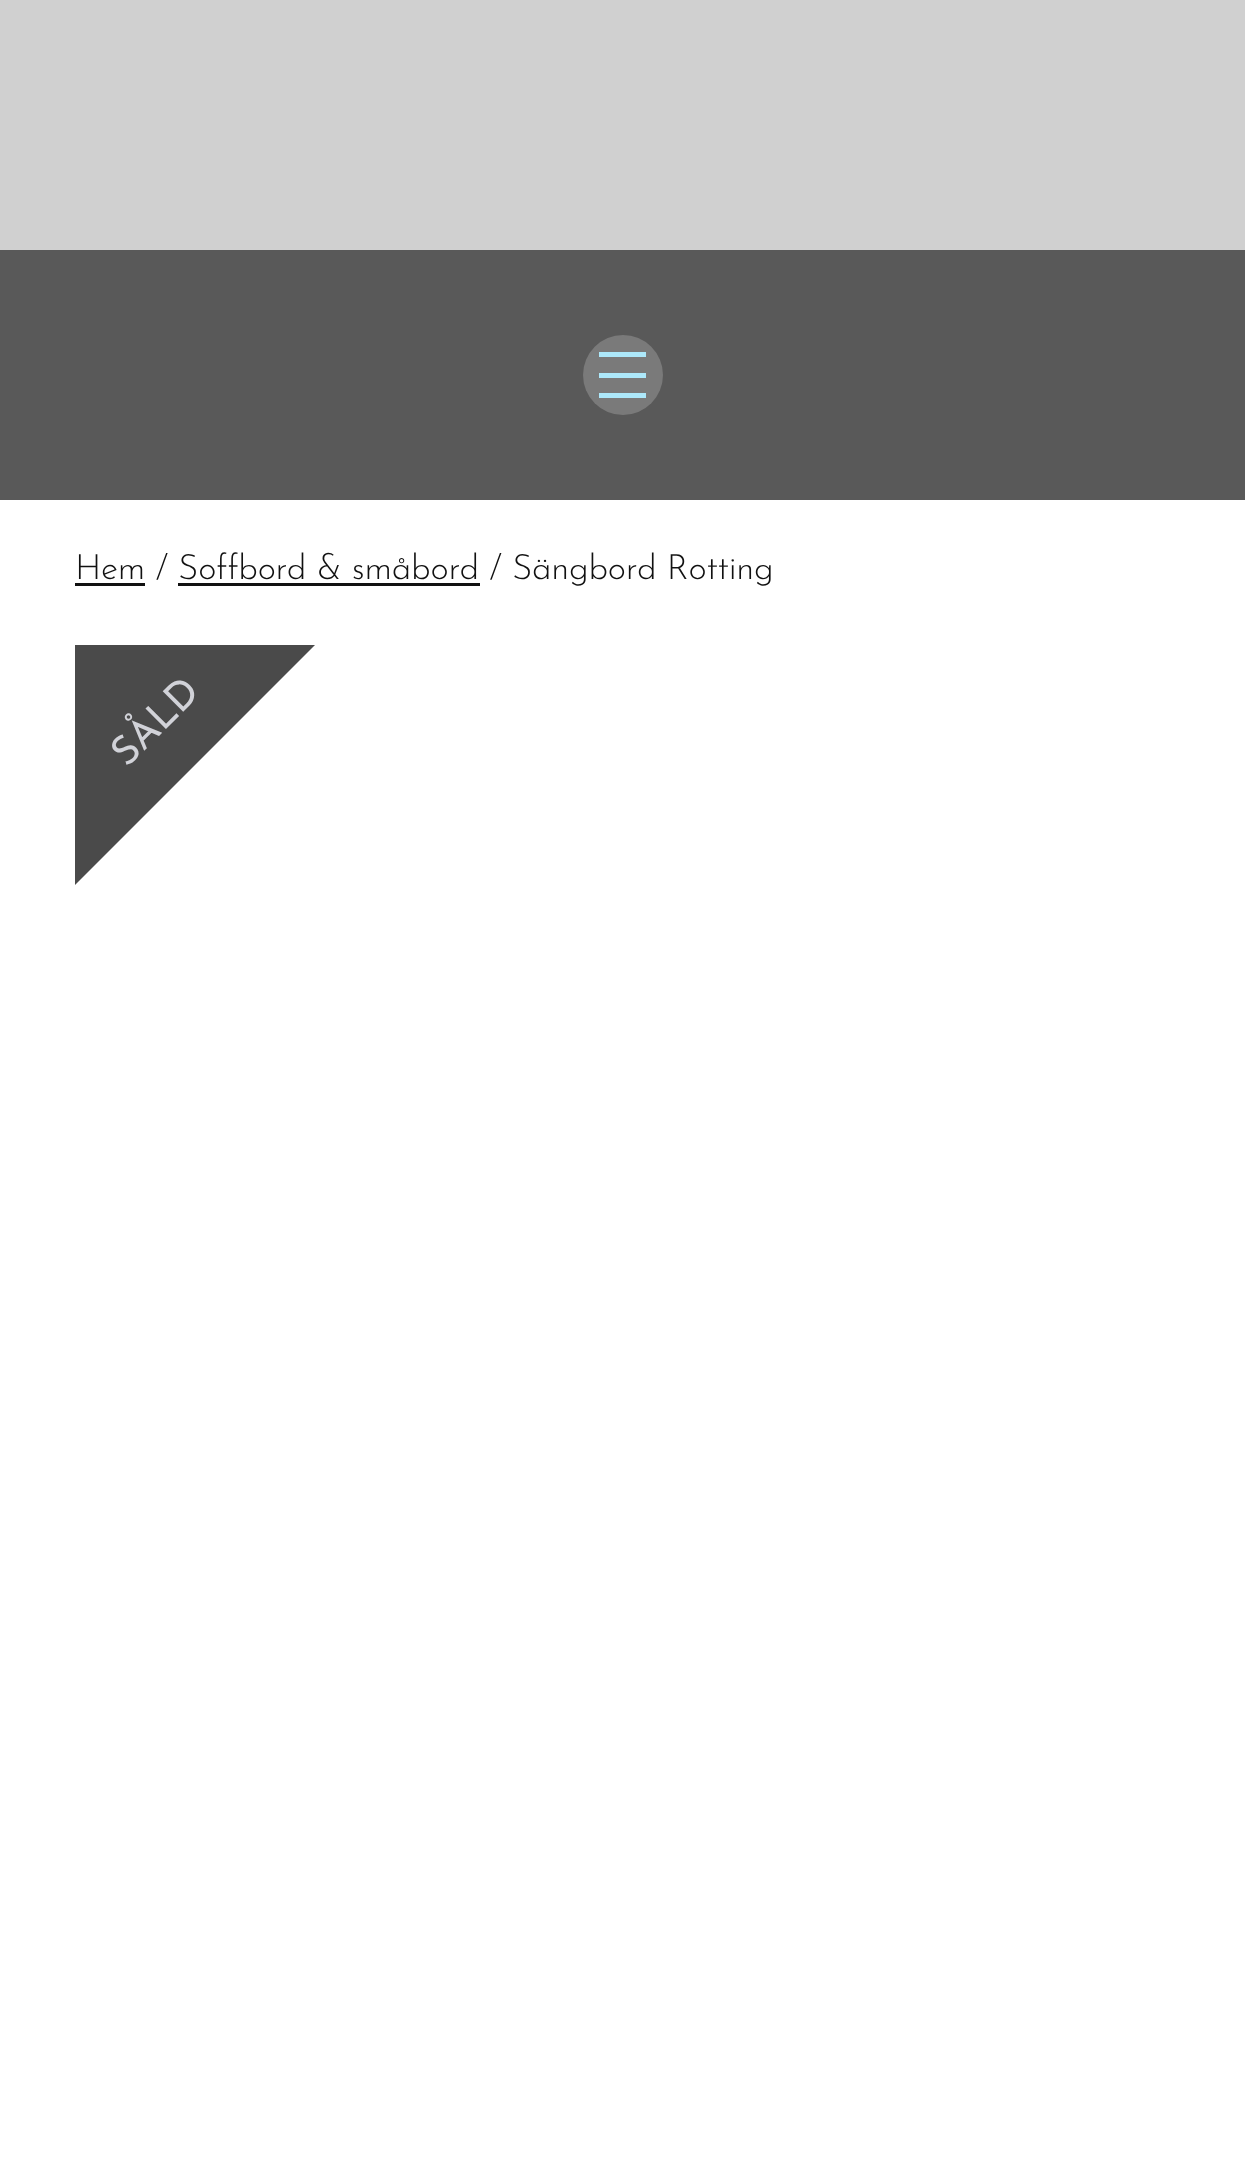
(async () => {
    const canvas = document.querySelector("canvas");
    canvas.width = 1245;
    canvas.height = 2158;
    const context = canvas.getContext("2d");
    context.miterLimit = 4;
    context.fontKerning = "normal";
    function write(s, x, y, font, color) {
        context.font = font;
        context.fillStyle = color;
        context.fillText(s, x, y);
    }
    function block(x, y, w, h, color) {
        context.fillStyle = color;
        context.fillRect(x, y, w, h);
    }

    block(0, 0, 1245, 2158, "rgb(255, 255, 255)");
    block(0, 0, 1245, 250, "rgb(208, 208, 208)");
    block(0, 250, 1245, 250, "rgb(89, 89, 89)");
    context.fillStyle = "rgb(122, 122, 122)";
    context.beginPath();
    context.arc(623, 375, 40, 0, Math.PI * 2);
    context.fill();
    block(599, 352, 47, 5, "rgb(173, 232, 250)");
    block(599, 373, 47, 5, "rgb(173, 232, 250)");
    block(599, 393, 47, 5, "rgb(173, 232, 250)");
    block(75, 583, 70, 3, "rgb(17, 17, 17)");
    context.letterSpacing = "-0.25px";
    write("Hem / Soffbord & småbord / Sängbord Rotting", 75, 579, "300 35px Josefin Sans", "rgb(17, 17, 17)");
    block(178, 583, 302, 3, "rgb(17, 17, 17)");
    context.fillStyle = "rgb(74, 74, 74)";
    context.beginPath();
    context.moveTo(75, 885);
    context.lineTo(75, 645);
    context.lineTo(315, 645);
    context.closePath();
    context.fill();
    context.font = "40px Josefin Sans";
    context.fillStyle = "rgb(209, 210, 216)";
    context.save();
    context.translate(127, 768);
    context.rotate(-45 * Math.PI / 180);
    context.fillText("SÅLD", 0, 0);
    context.restore();
})();
